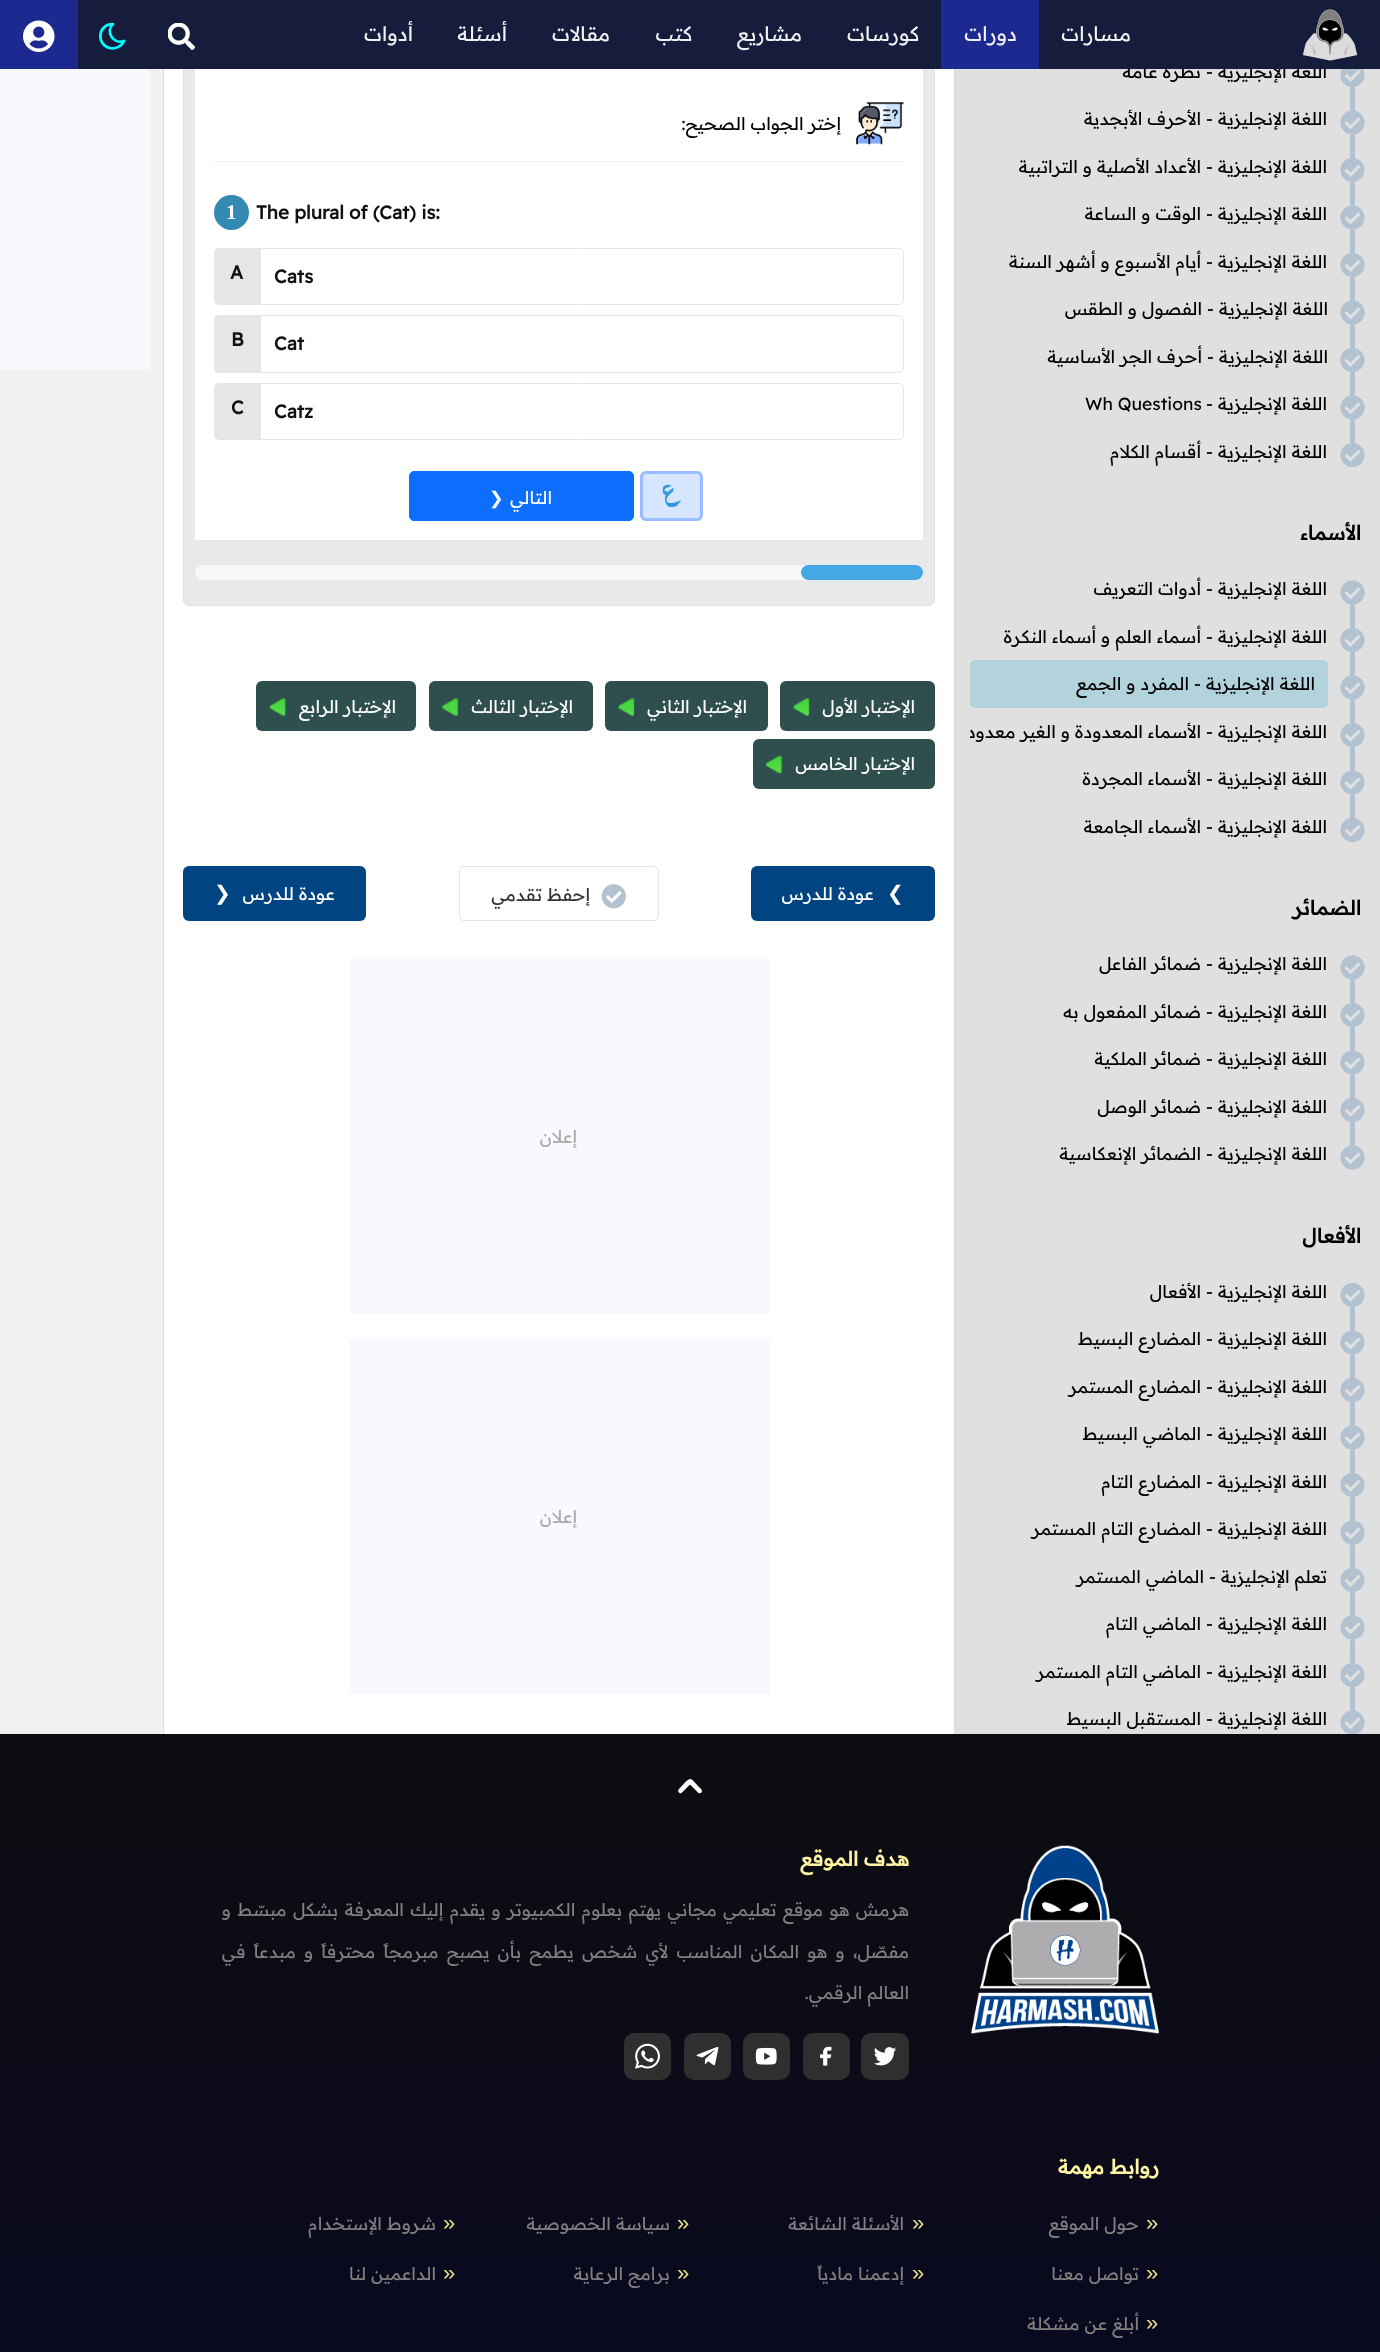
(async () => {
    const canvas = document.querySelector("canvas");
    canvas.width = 1380;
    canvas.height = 2352;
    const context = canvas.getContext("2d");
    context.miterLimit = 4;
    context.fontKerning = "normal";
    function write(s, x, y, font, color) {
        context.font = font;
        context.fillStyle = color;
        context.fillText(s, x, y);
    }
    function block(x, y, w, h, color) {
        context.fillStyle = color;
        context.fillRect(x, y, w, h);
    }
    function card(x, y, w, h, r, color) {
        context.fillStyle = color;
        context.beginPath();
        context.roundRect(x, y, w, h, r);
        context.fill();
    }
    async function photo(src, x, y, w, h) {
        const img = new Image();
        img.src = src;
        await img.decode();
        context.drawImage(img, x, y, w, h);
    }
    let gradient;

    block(0, 0, 1380, 2352, "rgb(241, 241, 241)");
    block(955, 69, 425, 1665, "rgb(224, 224, 224)");
    context.direction = "rtl";
    write("اللغة الإنجليزية - نظرة عامة", 1327, 78, "17.5px Readex Pro", "rgb(0, 0, 0)");
    block(164, 69, 790, 1665, "rgb(255, 255, 255)");
    context.fillStyle = "rgb(231, 233, 235)";
    context.beginPath();
    context.roundRect(183.5, -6.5, 751, 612, 5.5);
    context.fill();
    context.strokeStyle = "rgb(225, 225, 225)";
    context.stroke();
    block(78, 0, 1302, 69, "rgb(21, 28, 60)");
    await photo("media/1.png", 1303, 9, 55, 52);
    write("مسارات", 1131, 41, "20px Readex Pro", "rgb(241, 241, 241)");
    block(941, 0, 98, 69, "rgb(28, 41, 145)");
    write("دورات", 1017, 41, "20px Readex Pro", "rgb(241, 241, 241)");
    write("كورسات", 919, 41, "20px Readex Pro", "rgb(241, 241, 241)");
    write("مشاريع", 802, 41, "20px Readex Pro", "rgb(241, 241, 241)");
    write("كتب", 692, 41, "20px Readex Pro", "rgb(241, 241, 241)");
    write("مقالات", 610, 41, "20px Readex Pro", "rgb(241, 241, 241)");
    write("أسئلة", 507, 41, "20px Readex Pro", "rgb(241, 241, 241)");
    write("أدوات", 413, 41, "20px Readex Pro", "rgb(241, 241, 241)");
    await photo("media/2.png", 168, 23, 27, 27);
    context.beginPath();
    context.moveTo(112.5, 24);
    context.lineTo(113, 24);
    context.bezierCurveTo(105, 31.5, 113.5, 45, 124, 41);
    context.bezierCurveTo(121.5, 46.5, 115, 49.5, 109.5, 48);
    context.bezierCurveTo(103.5, 46.5, 99.5, 40.5, 100.5, 34.5);
    context.bezierCurveTo(101, 28.5, 106.5, 24, 112.5, 24);
    context.closePath();
    context.strokeStyle = "rgb(0, 255, 255)";
    context.lineWidth = 2.7;
    context.lineCap = "round";
    context.lineJoin = "round";
    context.stroke();
    block(0, 0, 78, 69, "rgb(28, 41, 145)");
    await photo("media/3.png", 23, 20, 32, 32);
    await photo("media/4.png", 1340, 69, 25, 18);
    await photo("media/5.png", 1340, 110, 25, 25);
    context.fillStyle = "rgb(179, 194, 208)";
    context.beginPath();
    context.roundRect(1350, 86, 5, 25, [2.5, 2.5, 0, 0]);
    context.fill();
    write("اللغة الإنجليزية - الأحرف الأبجدية", 1327, 125, "17.5px Readex Pro", "rgb(0, 0, 0)");
    await photo("media/6.png", 1340, 158, 25, 24);
    context.fillStyle = "rgb(179, 194, 208)";
    context.beginPath();
    context.roundRect(1350, 134, 5, 25, [2.5, 2.5, 0, 0]);
    context.fill();
    write("اللغة الإنجليزية - الأعداد الأصلية و التراتبية", 1327, 173, "17.5px Readex Pro", "rgb(0, 0, 0)");
    await photo("media/5.png", 1340, 205, 25, 25);
    context.fillStyle = "rgb(179, 194, 208)";
    context.beginPath();
    context.roundRect(1350, 181, 5, 25, [2.5, 2.5, 0, 0]);
    context.fill();
    write("اللغة الإنجليزية - الوقت و الساعة", 1327, 220, "17.5px Readex Pro", "rgb(0, 0, 0)");
    await photo("media/6.png", 1340, 253, 25, 24);
    context.fillStyle = "rgb(179, 194, 208)";
    context.beginPath();
    context.roundRect(1350, 229, 5, 25, [2.5, 2.5, 0, 0]);
    context.fill();
    write("اللغة الإنجليزية - أيام الأسبوع و أشهر السنة", 1327, 268, "17.5px Readex Pro", "rgb(0, 0, 0)");
    await photo("media/5.png", 1340, 300, 25, 25);
    context.fillStyle = "rgb(179, 194, 208)";
    context.beginPath();
    context.roundRect(1350, 276, 5, 25, [2.5, 2.5, 0, 0]);
    context.fill();
    write("اللغة الإنجليزية - الفصول و الطقس", 1328, 315, "17.5px Readex Pro", "rgb(0, 0, 0)");
    await photo("media/6.png", 1340, 348, 25, 24);
    context.fillStyle = "rgb(179, 194, 208)";
    context.beginPath();
    context.roundRect(1350, 324, 5, 25, [2.5, 2.5, 0, 0]);
    context.fill();
    write("اللغة الإنجليزية - أحرف الجر الأساسية", 1328, 363, "17.5px Readex Pro", "rgb(0, 0, 0)");
    await photo("media/5.png", 1340, 395, 25, 25);
    context.fillStyle = "rgb(179, 194, 208)";
    context.beginPath();
    context.roundRect(1350, 371, 5, 25, [2.5, 2.5, 0, 0]);
    context.fill();
    write("اللغة الإنجليزية -", 1327, 410, "17.5px Readex Pro", "rgb(0, 0, 0)");
    context.direction = "ltr";
    write("Wh Questions", 1085, 410, "17.5px Readex Pro", "rgb(0, 0, 0)");
    await photo("media/6.png", 1340, 443, 25, 24);
    context.fillStyle = "rgb(179, 194, 208)";
    context.beginPath();
    context.roundRect(1350, 419, 5, 25, [2.5, 2.5, 0, 0]);
    context.fill();
    context.direction = "rtl";
    write("اللغة الإنجليزية - أقسام الكلام", 1327, 458, "17.5px Readex Pro", "rgb(0, 0, 0)");
    write("الأسماء", 1361, 540, "bold 20px Readex Pro", "rgb(0, 0, 0)");
    await photo("media/5.png", 1340, 580, 25, 25);
    write("اللغة الإنجليزية - أدوات التعريف", 1327, 595, "17.5px Readex Pro", "rgb(0, 0, 0)");
    await photo("media/6.png", 1340, 628, 25, 24);
    context.fillStyle = "rgb(179, 194, 208)";
    context.beginPath();
    context.roundRect(1350, 604, 5, 25, [2.5, 2.5, 0, 0]);
    context.fill();
    write("اللغة الإنجليزية - أسماء العلم و أسماء النكرة", 1327, 643, "17.5px Readex Pro", "rgb(0, 0, 0)");
    await photo("media/5.png", 1340, 675, 25, 25);
    context.fillStyle = "rgb(179, 194, 208)";
    context.beginPath();
    context.roundRect(1350, 651, 5, 25, [2.5, 2.5, 0, 0]);
    context.fill();
    card(970, 660, 358, 48, 5, "rgb(178, 210, 220)");
    write("اللغة الإنجليزية - المفرد و الجمع", 1315, 690, "17.5px Readex Pro", "rgb(0, 0, 0)");
    await photo("media/6.png", 1340, 723, 25, 24);
    context.fillStyle = "rgb(179, 194, 208)";
    context.beginPath();
    context.roundRect(1350, 699, 5, 25, [2.5, 2.5, 0, 0]);
    context.fill();
    context.save();
    context.beginPath();
    context.roundRect(970, 708, 358, 47, 5);
    context.clip();
    write("اللغة الإنجليزية - الأسماء المعدودة و الغير معدودة", 1327, 738, "17.5px Readex Pro", "rgb(0, 0, 0)");
    context.restore();
    await photo("media/5.png", 1340, 770, 25, 25);
    context.beginPath();
    context.roundRect(1350, 746, 5, 25, [2.5, 2.5, 0, 0]);
    context.fill();
    write("اللغة الإنجليزية - الأسماء المجردة", 1327, 785, "17.5px Readex Pro", "rgb(0, 0, 0)");
    await photo("media/6.png", 1340, 818, 25, 24);
    context.fillStyle = "rgb(179, 194, 208)";
    context.beginPath();
    context.roundRect(1350, 794, 5, 25, [2.5, 2.5, 0, 0]);
    context.fill();
    write("اللغة الإنجليزية - الأسماء الجامعة", 1327, 833, "17.5px Readex Pro", "rgb(0, 0, 0)");
    write("الضمائر", 1361, 915, "bold 20px Readex Pro", "rgb(0, 0, 0)");
    await photo("media/5.png", 1340, 955, 25, 25);
    write("اللغة الإنجليزية - ضمائر الفاعل", 1327, 970, "17.5px Readex Pro", "rgb(0, 0, 0)");
    await photo("media/6.png", 1340, 1003, 25, 24);
    context.fillStyle = "rgb(179, 194, 208)";
    context.beginPath();
    context.roundRect(1350, 979, 5, 25, [2.5, 2.5, 0, 0]);
    context.fill();
    write("اللغة الإنجليزية - ضمائر المفعول به", 1327, 1018, "17.5px Readex Pro", "rgb(0, 0, 0)");
    await photo("media/5.png", 1340, 1050, 25, 25);
    context.fillStyle = "rgb(179, 194, 208)";
    context.beginPath();
    context.roundRect(1350, 1026, 5, 25, [2.5, 2.5, 0, 0]);
    context.fill();
    write("اللغة الإنجليزية - ضمائر الملكية", 1327, 1065, "17.5px Readex Pro", "rgb(0, 0, 0)");
    await photo("media/6.png", 1340, 1098, 25, 24);
    context.fillStyle = "rgb(179, 194, 208)";
    context.beginPath();
    context.roundRect(1350, 1074, 5, 25, [2.5, 2.5, 0, 0]);
    context.fill();
    write("اللغة الإنجليزية - ضمائر الوصل", 1327, 1113, "17.5px Readex Pro", "rgb(0, 0, 0)");
    await photo("media/5.png", 1340, 1145, 25, 25);
    context.fillStyle = "rgb(179, 194, 208)";
    context.beginPath();
    context.roundRect(1350, 1121, 5, 25, [2.5, 2.5, 0, 0]);
    context.fill();
    write("اللغة الإنجليزية - الضمائر الإنعكاسية", 1327, 1160, "17.5px Readex Pro", "rgb(0, 0, 0)");
    write("الأفعال", 1361, 1243, "bold 20px Readex Pro", "rgb(0, 0, 0)");
    await photo("media/6.png", 1340, 1283, 25, 24);
    write("اللغة الإنجليزية - الأفعال", 1327, 1298, "17.5px Readex Pro", "rgb(0, 0, 0)");
    await photo("media/5.png", 1340, 1330, 25, 25);
    context.fillStyle = "rgb(179, 194, 208)";
    context.beginPath();
    context.roundRect(1350, 1306, 5, 25, [2.5, 2.5, 0, 0]);
    context.fill();
    write("اللغة الإنجليزية - المضارع البسيط", 1327, 1345, "17.5px Readex Pro", "rgb(0, 0, 0)");
    await photo("media/6.png", 1340, 1378, 25, 24);
    context.fillStyle = "rgb(179, 194, 208)";
    context.beginPath();
    context.roundRect(1350, 1354, 5, 25, [2.5, 2.5, 0, 0]);
    context.fill();
    write("اللغة الإنجليزية - المضارع المستمر", 1327, 1393, "17.5px Readex Pro", "rgb(0, 0, 0)");
    await photo("media/5.png", 1340, 1425, 25, 25);
    context.fillStyle = "rgb(179, 194, 208)";
    context.beginPath();
    context.roundRect(1350, 1401, 5, 25, [2.5, 2.5, 0, 0]);
    context.fill();
    write("اللغة الإنجليزية - الماضي البسيط", 1327, 1440, "17.5px Readex Pro", "rgb(0, 0, 0)");
    await photo("media/6.png", 1340, 1473, 25, 24);
    context.fillStyle = "rgb(179, 194, 208)";
    context.beginPath();
    context.roundRect(1350, 1449, 5, 25, [2.5, 2.5, 0, 0]);
    context.fill();
    write("اللغة الإنجليزية - المضارع التام", 1327, 1488, "17.5px Readex Pro", "rgb(0, 0, 0)");
    await photo("media/5.png", 1340, 1520, 25, 25);
    context.fillStyle = "rgb(179, 194, 208)";
    context.beginPath();
    context.roundRect(1350, 1496, 5, 25, [2.5, 2.5, 0, 0]);
    context.fill();
    write("اللغة الإنجليزية - المضارع التام المستمر", 1327, 1535, "17.5px Readex Pro", "rgb(0, 0, 0)");
    await photo("media/6.png", 1340, 1568, 25, 24);
    context.fillStyle = "rgb(179, 194, 208)";
    context.beginPath();
    context.roundRect(1350, 1544, 5, 25, [2.5, 2.5, 0, 0]);
    context.fill();
    write("تعلم الإنجليزية - الماضي المستمر", 1327, 1583, "17.5px Readex Pro", "rgb(0, 0, 0)");
    await photo("media/5.png", 1340, 1615, 25, 25);
    context.fillStyle = "rgb(179, 194, 208)";
    context.beginPath();
    context.roundRect(1350, 1591, 5, 25, [2.5, 2.5, 0, 0]);
    context.fill();
    write("اللغة الإنجليزية - الماضي التام", 1327, 1630, "17.5px Readex Pro", "rgb(0, 0, 0)");
    await photo("media/6.png", 1340, 1663, 25, 24);
    context.fillStyle = "rgb(179, 194, 208)";
    context.beginPath();
    context.roundRect(1350, 1639, 5, 25, [2.5, 2.5, 0, 0]);
    context.fill();
    write("اللغة الإنجليزية - الماضي التام المستمر", 1327, 1678, "17.5px Readex Pro", "rgb(0, 0, 0)");
    await photo("media/7.png", 1340, 1710, 25, 24);
    context.fillStyle = "rgb(179, 194, 208)";
    context.beginPath();
    context.roundRect(1350, 1686, 5, 25, [2.5, 2.5, 0, 0]);
    context.fill();
    write("اللغة الإنجليزية - المستقبل البسيط", 1327, 1725, "17.5px Readex Pro", "rgb(0, 0, 0)");
    block(954, 69, 1, 1665, "rgb(220, 220, 220)");
    block(163, 69, 1, 1665, "rgb(220, 220, 220)");
    block(195, 69, 728, 471, "rgb(255, 255, 255)");
    await photo("media/8.png", 856, 102, 48, 43);
    write("إختر الجواب الصحيح:", 841, 130, "17.5px Readex Pro", "rgb(0, 0, 0)");
    block(214, 161, 690, 1, "rgb(241, 241, 241)");
    context.direction = "ltr";
    write("The plural of (Cat) is:", 256, 219, "bold 18.75px Readex Pro", "rgb(17, 17, 17)");
    context.fillStyle = "rgb(51, 137, 179)";
    context.beginPath();
    context.arc(231.5, 212.5, 17.5, 0, Math.PI * 2);
    context.fill();
    write("1", 226, 219, "bold 21px Liberation Serif", "rgb(255, 255, 255)");
    context.beginPath();
    context.roundRect(260.5, 248.5, 643, 56, [0, 4.5, 4.5, 0]);
    context.strokeStyle = "rgb(230, 230, 230)";
    context.lineWidth = 1;
    context.lineJoin = "miter";
    context.stroke();
    write("Cats", 274, 283, "bold 18.75px Readex Pro", "rgb(17, 17, 17)");
    context.fillStyle = "rgb(230, 230, 230)";
    context.beginPath();
    context.roundRect(214, 248, 46, 57, [5, 0, 0, 5]);
    context.fill();
    write("A", 230, 279, "bold 18.75px Readex Pro", "rgb(17, 17, 17)");
    context.beginPath();
    context.roundRect(260.5, 315.5, 643, 57, [0, 4.5, 4.5, 0]);
    context.stroke();
    write("Cat", 274, 350, "bold 18.75px Readex Pro", "rgb(17, 17, 17)");
    context.fillStyle = "rgb(230, 230, 230)";
    context.beginPath();
    context.roundRect(214, 315, 46, 58, [5, 0, 0, 5]);
    context.fill();
    write("B", 231, 346, "bold 18.75px Readex Pro", "rgb(17, 17, 17)");
    context.beginPath();
    context.roundRect(260.5, 383.5, 643, 56, [0, 4.5, 4.5, 0]);
    context.stroke();
    write("Catz", 274, 418, "bold 18.75px Readex Pro", "rgb(17, 17, 17)");
    context.fillStyle = "rgb(230, 230, 230)";
    context.beginPath();
    context.roundRect(214, 383, 46, 57, [5, 0, 0, 5]);
    context.fill();
    write("C", 231, 414, "bold 18.75px Readex Pro", "rgb(17, 17, 17)");
    card(640, 471, 63, 50, 6, "rgb(215, 230, 255)");
    await photo("media/9.png", 662, 484, 19, 23);
    context.beginPath();
    context.roundRect(641.5, 472.5, 60, 47, 4.5);
    context.strokeStyle = "rgb(153, 187, 255)";
    context.lineWidth = 3;
    context.stroke();
    context.fillStyle = "rgb(13, 110, 253)";
    context.beginPath();
    context.roundRect(409.5, 471.5, 224, 49, 4.5);
    context.fill();
    context.strokeStyle = "rgb(13, 110, 253)";
    context.lineWidth = 1;
    context.stroke();
    context.direction = "rtl";
    write("التالي", 552, 504, "17.5px Readex Pro", "rgb(255, 255, 255)");
    context.direction = "ltr";
    write("❯", 489, 504, "17.5px DejaVu Sans", "rgb(255, 255, 255)");
    card(195, 565, 728, 15, 7.5, "rgb(248, 248, 248)");
    card(801, 565, 122, 15, 7.5, "rgb(67, 168, 228)");
    card(780, 681, 155, 50, 6, "rgb(47, 79, 79)");
    await photo("media/10.png", 792, 698, 18, 18);
    context.direction = "rtl";
    write("الإختبار الأول", 915, 713, "17.5px Readex Pro", "rgb(255, 255, 255)");
    card(605, 681, 163, 50, 6, "rgb(47, 79, 79)");
    await photo("media/10.png", 617, 698, 18, 18);
    write("الإختبار الثاني", 747, 713, "17.5px Readex Pro", "rgb(255, 255, 255)");
    card(429, 681, 164, 50, 6, "rgb(47, 79, 79)");
    await photo("media/11.png", 441, 698, 18, 18);
    write("الإختبار الثالث", 573, 713, "17.5px Readex Pro", "rgb(255, 255, 255)");
    card(256, 681, 160, 50, 6, "rgb(47, 79, 79)");
    await photo("media/12.png", 269, 698, 18, 18);
    write("الإختبار الرابع", 396, 713, "17.5px Readex Pro", "rgb(255, 255, 255)");
    card(753, 739, 182, 50, 6, "rgb(47, 79, 79)");
    await photo("media/13.png", 765, 755, 18, 19);
    write("الإختبار الخامس", 915, 770, "17.5px Readex Pro", "rgb(255, 255, 255)");
    card(751, 866, 184, 55, 6, "rgb(0, 68, 129)");
    context.direction = "ltr";
    write("❮", 887, 900, "20px DejaVu Sans", "rgb(255, 255, 255)");
    context.direction = "rtl";
    write("عودة للدرس", 874, 900, "17.5px Readex Pro", "rgb(255, 255, 255)");
    context.beginPath();
    context.roundRect(459.5, 866.5, 199, 54, 4.5);
    context.strokeStyle = "rgb(229, 229, 229)";
    context.stroke();
    await photo("media/14.png", 601, 884, 25, 25);
    write("إحفظ تقدمي", 590, 901, "17.5px Readex Pro", "rgb(51, 51, 51)");
    card(183, 866, 183, 55, 6, "rgb(0, 68, 129)");
    write("عودة للدرس", 335, 900, "17.5px Readex Pro", "rgb(255, 255, 255)");
    context.direction = "ltr";
    write("❯", 214, 900, "20px DejaVu Sans", "rgb(255, 255, 255)");
    block(349, 959, 421, 355, "rgb(248, 248, 255)");
    context.direction = "rtl";
    write("إعلان", 577, 1143, "17.5px Readex Pro", "rgb(169, 169, 169)");
    block(349, 1339, 421, 355, "rgb(248, 248, 255)");
    write("إعلان", 577, 1523, "17.5px Readex Pro", "rgb(169, 169, 169)");
    block(0, 69, 150, 300, "rgb(248, 248, 255)");
    gradient = context.createLinearGradient(690, 1734, 690, 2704);
    gradient.addColorStop(0, "rgb(13, 13, 17)");
    gradient.addColorStop(1, "rgb(7, 7, 40)");
    context.fillStyle = gradient;
    context.fillRect(0, 1734, 1380, 618);
    context.fillStyle = "rgb(255, 255, 255)";
    context.beginPath();
    context.moveTo(679, 1789);
    context.lineTo(684.5, 1783);
    context.bezierCurveTo(686, 1781.5, 689.5, 1777, 691.5, 1780.5);
    context.bezierCurveTo(692, 1781, 692, 1782, 691.5, 1783);
    context.lineTo(681.5, 1793);
    context.bezierCurveTo(679, 1794, 677, 1791, 679, 1789);
    context.closePath();
    context.fill();
    context.beginPath();
    context.moveTo(692.5, 1780);
    context.lineTo(698, 1786);
    context.bezierCurveTo(699.5, 1787.5, 704, 1790.5, 701, 1793);
    context.bezierCurveTo(700, 1793, 699, 1793.5, 698.5, 1793);
    context.lineTo(688.5, 1783);
    context.bezierCurveTo(687.5, 1780.5, 690.5, 1778, 692.5, 1780);
    context.closePath();
    context.fill();
    await photo("media/15.png", 971, 1845, 188, 189);
    write("هدف الموقع", 909, 1866, "bold 20px Readex Pro", "rgb(255, 244, 163)");
    context.wordSpacing = "1.4px";
    write("هرمش هو موقع تعليمي مجاني يهتم بعلوم الكمبيوتر و يقدم إليك المعرفة بشكل مبسّط و", 909, 1916, "17.5px Readex Pro", "rgb(128, 128, 128)");
    context.wordSpacing = "3.25px";
    write("مفصّل، و هو", 909, 1958, "17.5px Readex Pro", "rgb(128, 128, 128)");
    write("المكان المناسب لأي شخص يطمح بأن يصبح مبرمجاً محترفاً و مبدعاً في", 799, 1958, "17.5px Readex Pro", "rgb(128, 128, 128)");
    context.wordSpacing = "0px";
    write("العالم الرقمي.", 909, 1999, "17.5px Readex Pro", "rgb(128, 128, 128)");
    card(861, 2033, 48, 47, 10, "rgb(47, 47, 47)");
    await photo("media/16.png", 874, 2047, 22, 19);
    card(803, 2033, 47, 47, 10, "rgb(47, 47, 47)");
    await photo("media/17.png", 820, 2046, 12, 20);
    card(743, 2033, 47, 47, 10, "rgb(47, 47, 47)");
    await photo("media/18.png", 755, 2047, 22, 18);
    card(684, 2033, 47, 47, 10, "rgb(47, 47, 47)");
    await photo("media/19.png", 696, 2046, 23, 20);
    card(624, 2033, 47, 47, 10, "rgb(47, 47, 47)");
    await photo("media/20.png", 635, 2043, 25, 26);
    write("روابط مهمة", 1159, 2174, "bold 20px Readex Pro", "rgb(255, 244, 163)");
    context.direction = "ltr";
    write("»", 1146, 2230, "22px Liberation Sans", "rgb(240, 230, 140)");
    context.direction = "rtl";
    write("حول الموقع", 1139, 2230, "17.5px Readex Pro", "rgb(128, 128, 128)");
    context.direction = "ltr";
    write("»", 912, 2230, "22px Liberation Sans", "rgb(240, 230, 140)");
    context.direction = "rtl";
    write("الأسئلة الشائعة", 904, 2230, "17.5px Readex Pro", "rgb(128, 128, 128)");
    context.direction = "ltr";
    write("»", 677, 2230, "22px Liberation Sans", "rgb(240, 230, 140)");
    context.direction = "rtl";
    write("سياسة الخصوصية", 670, 2230, "17.5px Readex Pro", "rgb(128, 128, 128)");
    context.direction = "ltr";
    write("»", 443, 2230, "22px Liberation Sans", "rgb(240, 230, 140)");
    context.direction = "rtl";
    write("شروط الإستخدام", 436, 2230, "17.5px Readex Pro", "rgb(128, 128, 128)");
    context.direction = "ltr";
    write("»", 1146, 2280, "22px Liberation Sans", "rgb(240, 230, 140)");
    context.direction = "rtl";
    write("تواصل معنا", 1139, 2280, "17.5px Readex Pro", "rgb(128, 128, 128)");
    context.direction = "ltr";
    write("»", 912, 2280, "22px Liberation Sans", "rgb(240, 230, 140)");
    context.direction = "rtl";
    write("إدعمنا مادياً", 904, 2280, "17.5px Readex Pro", "rgb(128, 128, 128)");
    context.direction = "ltr";
    write("»", 677, 2280, "22px Liberation Sans", "rgb(240, 230, 140)");
    context.direction = "rtl";
    write("برامج الرعاية", 670, 2280, "17.5px Readex Pro", "rgb(128, 128, 128)");
    context.direction = "ltr";
    write("»", 443, 2280, "22px Liberation Sans", "rgb(240, 230, 140)");
    context.direction = "rtl";
    write("الداعمين لنا", 436, 2280, "17.5px Readex Pro", "rgb(128, 128, 128)");
    context.direction = "ltr";
    write("»", 1146, 2330, "22px Liberation Sans", "rgb(240, 230, 140)");
    context.direction = "rtl";
    write("أبلغ عن مشكلة", 1139, 2330, "17.5px Readex Pro", "rgb(128, 128, 128)");
})();
